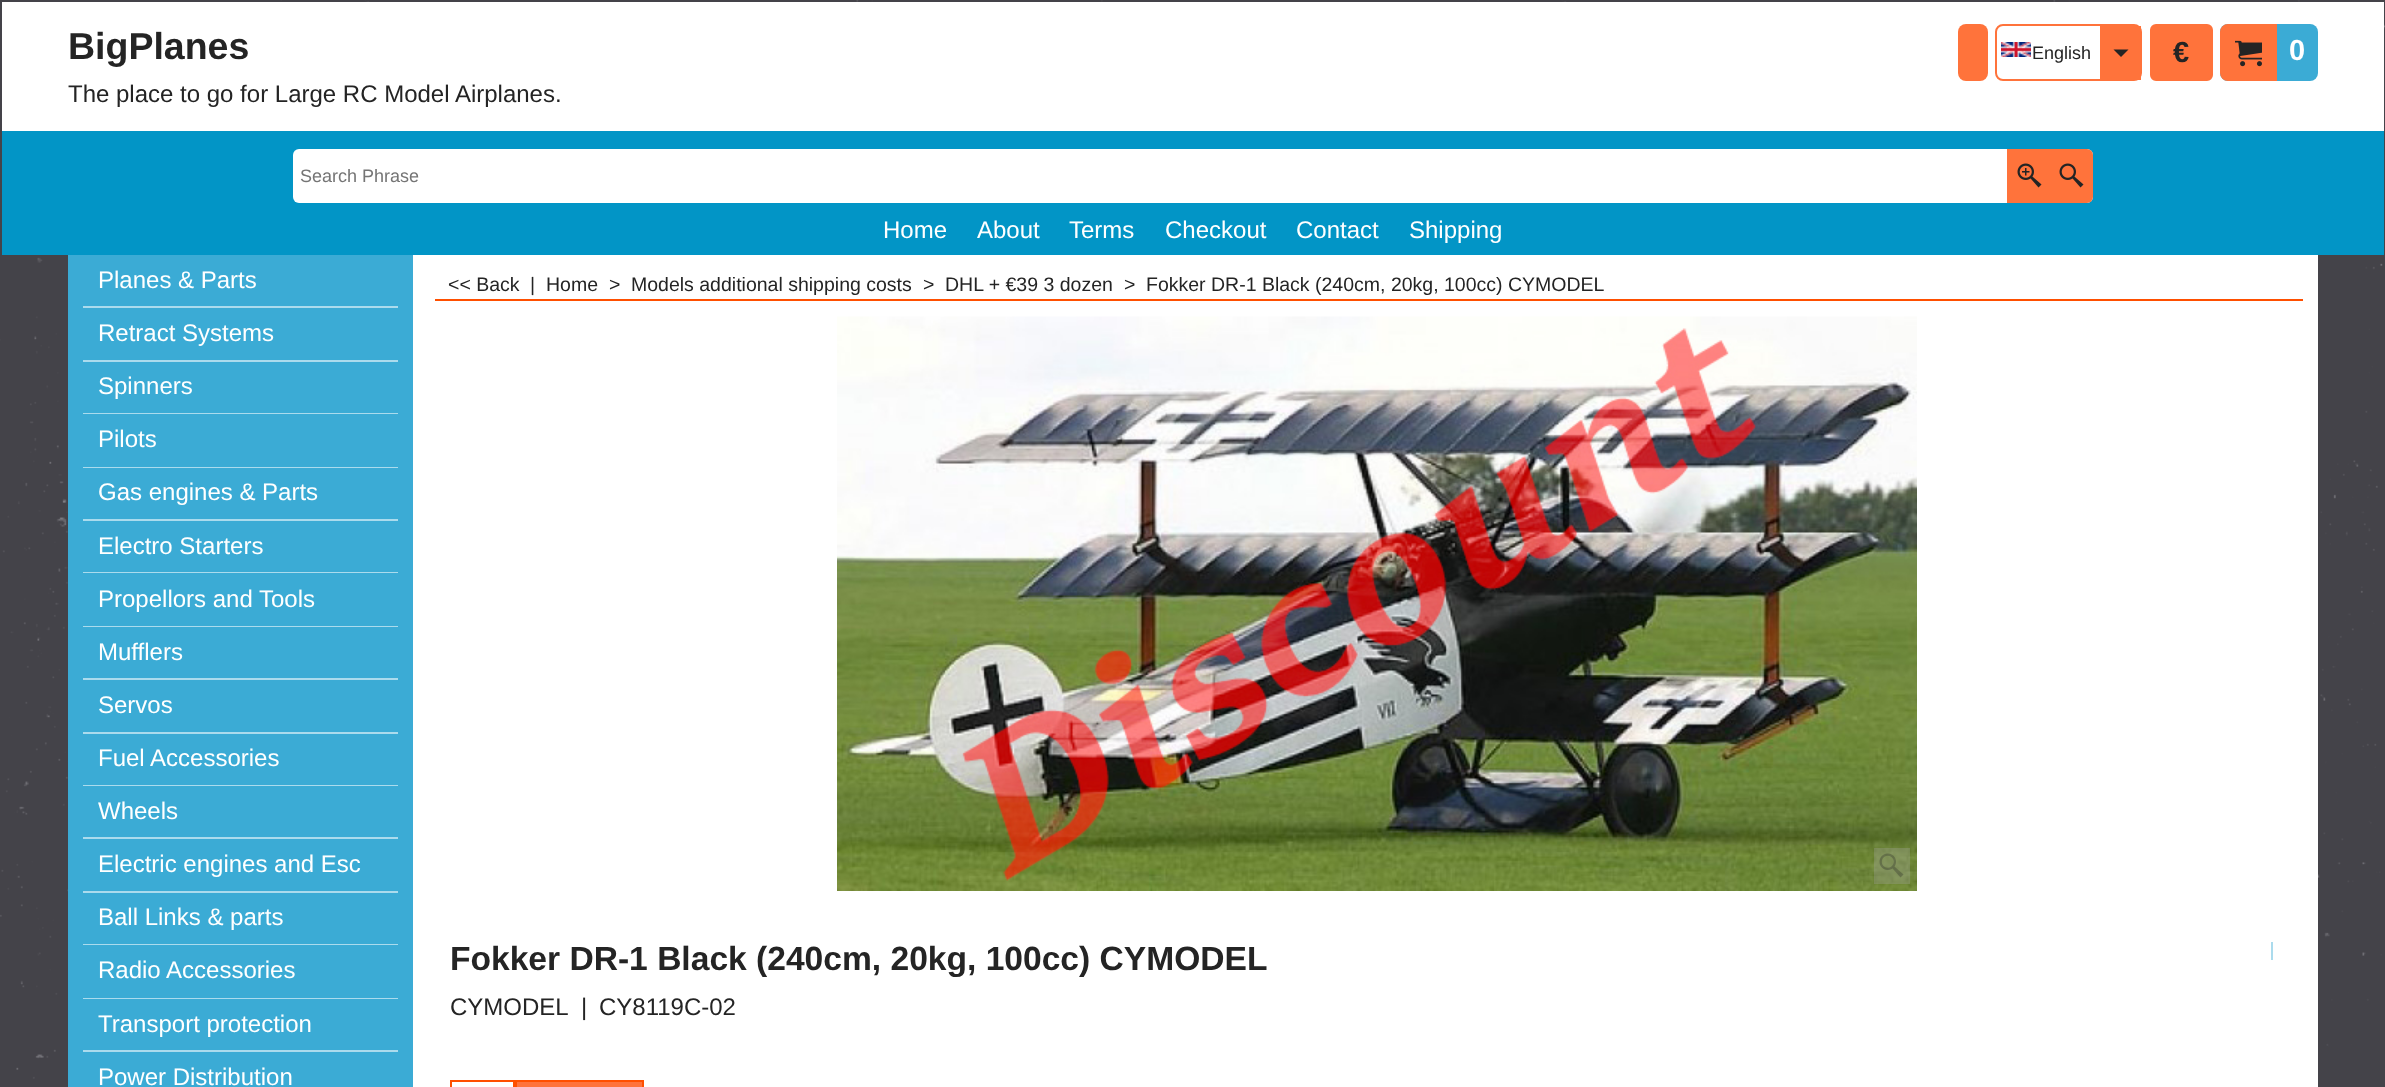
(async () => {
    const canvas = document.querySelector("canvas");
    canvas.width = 2385;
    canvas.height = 1087;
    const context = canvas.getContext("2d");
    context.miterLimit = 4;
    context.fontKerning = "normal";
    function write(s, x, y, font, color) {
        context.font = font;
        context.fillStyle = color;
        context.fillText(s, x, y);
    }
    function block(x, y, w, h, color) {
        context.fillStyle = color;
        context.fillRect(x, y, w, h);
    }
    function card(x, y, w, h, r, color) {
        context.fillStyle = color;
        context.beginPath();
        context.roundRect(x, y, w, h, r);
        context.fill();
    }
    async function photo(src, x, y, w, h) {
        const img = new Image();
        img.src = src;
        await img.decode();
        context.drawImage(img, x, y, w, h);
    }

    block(0, 0, 2385, 1087, "rgb(255, 255, 255)");
    await photo("media/1.png", 0, 0, 2385, 1087);
    block(2, 2, 2382, 129, "rgb(255, 255, 255)");
    write("BigPlanes", 68, 59, "bold 37.5px Liberation Sans", "rgb(36, 36, 36)");
    write("The place to go for Large RC Model Airplanes.", 68, 102, "24px Liberation Sans", "rgb(36, 36, 36)");
    card(1958, 24, 30, 57, 8, "rgb(255, 115, 59)");
    context.beginPath();
    context.roundRect(1996, 25, 145, 55, 7);
    context.strokeStyle = "rgb(255, 115, 59)";
    context.lineWidth = 2;
    context.stroke();
    await photo("media/2.png", 2001, 42, 30, 15);
    write("English", 2032, 59, "18px Liberation Sans", "rgb(36, 36, 36)");
    block(2100, 26, 41, 54, "rgb(255, 115, 59)");
    context.fillStyle = "rgb(36, 36, 36)";
    context.beginPath();
    context.moveTo(2113.5, 49.5);
    context.lineTo(2121, 57);
    context.lineTo(2128.5, 49.5);
    context.closePath();
    context.fill();
    context.fillStyle = "rgb(255, 115, 59)";
    context.beginPath();
    context.roundRect(2151, 25, 61, 55, 5);
    context.fill();
    context.stroke();
    write("€", 2173, 62, "bold 29px Liberation Sans", "rgb(36, 36, 36)");
    card(2220, 24, 98, 57, 8, "rgb(59, 171, 213)");
    context.fillStyle = "rgb(255, 115, 59)";
    context.beginPath();
    context.roundRect(2221, 25, 55, 55, [7, 0, 0, 7]);
    context.fill();
    context.stroke();
    await photo("media/3.png", 2235, 40, 27, 27);
    write("0", 2289, 60, "bold 29px Liberation Sans", "rgb(255, 255, 255)");
    block(2, 131, 2382, 124, "rgb(2, 149, 198)");
    card(293, 149, 1800, 54, 6, "rgb(255, 255, 255)");
    write("Search Phrase", 300, 182, "18px Liberation Sans", "rgb(117, 117, 117)");
    block(2007, 149, 42, 54, "rgb(255, 115, 59)");
    await photo("media/4.png", 2017, 163, 25, 25);
    context.beginPath();
    context.roundRect(2049, 149, 44, 54, [0, 6, 6, 0]);
    context.fill();
    await photo("media/5.png", 2059, 163, 25, 25);
    write("Home", 883, 238, "24px Liberation Sans", "rgb(255, 255, 255)");
    write("About", 977, 238, "24px Liberation Sans", "rgb(255, 255, 255)");
    write("Terms", 1069, 238, "24px Liberation Sans", "rgb(255, 255, 255)");
    write("Checkout", 1165, 238, "24px Liberation Sans", "rgb(255, 255, 255)");
    write("Contact", 1296, 238, "24px Liberation Sans", "rgb(255, 255, 255)");
    write("Shipping", 1409, 238, "24px Liberation Sans", "rgb(255, 255, 255)");
    block(413, 255, 1905, 832, "rgb(255, 255, 255)");
    block(68, 255, 345, 832, "rgb(59, 171, 213)");
    block(83, 306, 315, 2, "rgb(171, 219, 237)");
    write("Planes & Parts", 98, 288, "24px Liberation Sans", "rgb(255, 255, 255)");
    block(83, 360, 315, 2, "rgb(171, 219, 237)");
    write("Retract Systems", 98, 341, "24px Liberation Sans", "rgb(255, 255, 255)");
    block(83, 413, 315, 1, "rgb(171, 219, 237)");
    write("Spinners", 98, 394, "24px Liberation Sans", "rgb(255, 255, 255)");
    block(83, 467, 315, 1, "rgb(171, 219, 237)");
    write("Pilots", 98, 447, "24px Liberation Sans", "rgb(255, 255, 255)");
    block(83, 519, 315, 2, "rgb(171, 219, 237)");
    write("Gas engines & Parts", 98, 500, "24px Liberation Sans", "rgb(255, 255, 255)");
    block(83, 572, 315, 1, "rgb(171, 219, 237)");
    write("Electro Starters", 98, 554, "24px Liberation Sans", "rgb(255, 255, 255)");
    block(83, 626, 315, 1, "rgb(171, 219, 237)");
    write("Propellors and Tools", 98, 607, "24px Liberation Sans", "rgb(255, 255, 255)");
    block(83, 678, 315, 2, "rgb(171, 219, 237)");
    write("Mufflers", 98, 660, "24px Liberation Sans", "rgb(255, 255, 255)");
    block(83, 732, 315, 2, "rgb(171, 219, 237)");
    write("Servos", 98, 713, "24px Liberation Sans", "rgb(255, 255, 255)");
    block(83, 785, 315, 1, "rgb(171, 219, 237)");
    write("Fuel Accessories", 98, 766, "24px Liberation Sans", "rgb(255, 255, 255)");
    block(83, 837, 315, 2, "rgb(171, 219, 237)");
    write("Wheels", 98, 819, "24px Liberation Sans", "rgb(255, 255, 255)");
    block(83, 891, 315, 2, "rgb(171, 219, 237)");
    write("Electric engines and Esc", 98, 872, "24px Liberation Sans", "rgb(255, 255, 255)");
    block(83, 944, 315, 1, "rgb(171, 219, 237)");
    write("Ball Links & parts", 98, 925, "24px Liberation Sans", "rgb(255, 255, 255)");
    block(83, 998, 315, 1, "rgb(171, 219, 237)");
    write("Radio Accessories", 98, 978, "24px Liberation Sans", "rgb(255, 255, 255)");
    block(83, 1050, 315, 2, "rgb(171, 219, 237)");
    write("Transport protection", 98, 1032, "24px Liberation Sans", "rgb(255, 255, 255)");
    write("Power Distribution", 98, 1085, "24px Liberation Sans", "rgb(255, 255, 255)");
    block(435, 299, 1868, 2, "rgb(255, 79, 0)");
    write("<< Back", 448, 291, "19.5px Liberation Sans", "rgb(36, 36, 36)");
    write("|", 530, 291, "19.5px Liberation Sans", "rgb(36, 36, 36)");
    write("Home", 546, 291, "19.5px Liberation Sans", "rgb(36, 36, 36)");
    write(">", 609, 291, "19.5px Liberation Sans", "rgb(36, 36, 36)");
    write("Models additional shipping costs", 631, 291, "19.5px Liberation Sans", "rgb(36, 36, 36)");
    write(">", 923, 291, "19.5px Liberation Sans", "rgb(36, 36, 36)");
    write("DHL + €39 3 dozen", 945, 291, "19.5px Liberation Sans", "rgb(36, 36, 36)");
    write(">", 1124, 291, "19.5px Liberation Sans", "rgb(36, 36, 36)");
    write("Fokker DR-1 Black (240cm, 20kg, 100cc) CYMODEL", 1146, 291, "19.5px Liberation Sans", "rgb(36, 36, 36)");
    await photo("media/6.png", 837, 316, 1080, 575);
    block(1874, 848, 36, 36, "rgba(170, 170, 170, 0.3)");
    await photo("media/7.png", 1879, 853, 25, 25);
    write("Fokker DR-1 Black (240cm, 20kg, 100cc) CYMODEL", 450, 970, "bold 33.6px Liberation Sans", "rgb(36, 36, 36)");
    write("CYMODEL", 450, 1015, "24px Liberation Sans", "rgb(36, 36, 36)");
    write("|", 581, 1015, "24px Liberation Sans", "rgb(36, 36, 36)");
    write("CY8119C-02", 599, 1015, "24px Liberation Sans", "rgb(36, 36, 36)");
    block(2271, 942, 2, 18, "rgb(171, 219, 237)");
    context.strokeStyle = "rgb(255, 79, 0)";
    context.strokeRect(451, 1081, 63, 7);
    context.fillStyle = "rgb(255, 115, 59)";
    context.beginPath();
    context.rect(516, 1081, 127, 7);
    context.fill();
    context.stroke();
})();
